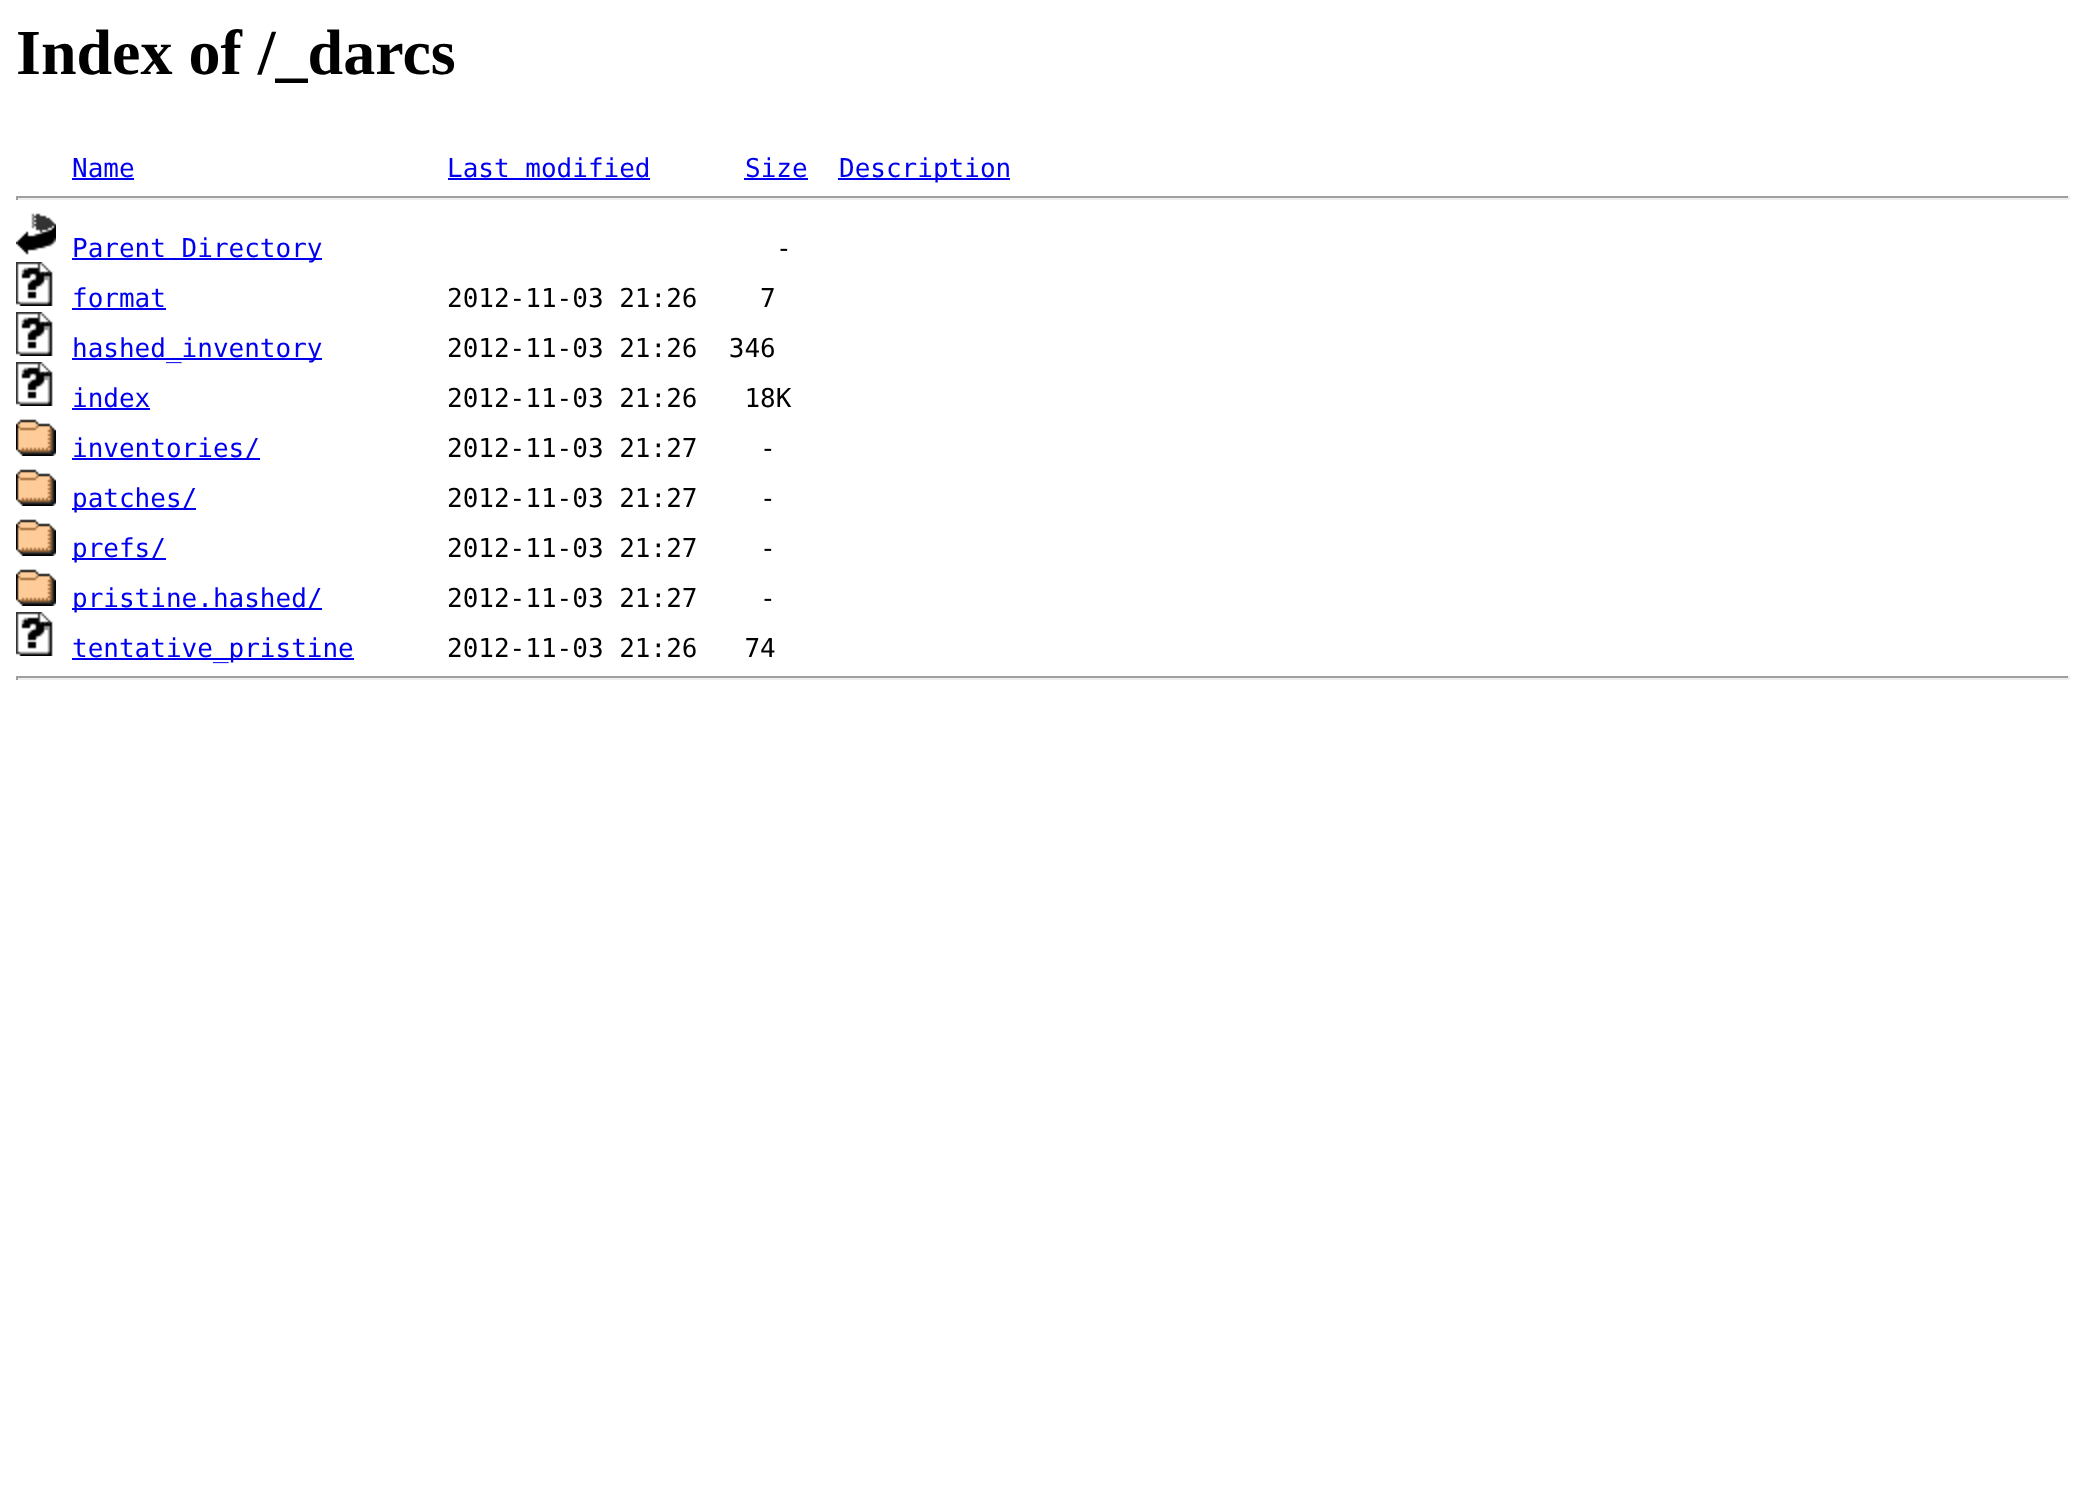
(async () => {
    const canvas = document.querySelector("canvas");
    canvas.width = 2086;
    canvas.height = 1499;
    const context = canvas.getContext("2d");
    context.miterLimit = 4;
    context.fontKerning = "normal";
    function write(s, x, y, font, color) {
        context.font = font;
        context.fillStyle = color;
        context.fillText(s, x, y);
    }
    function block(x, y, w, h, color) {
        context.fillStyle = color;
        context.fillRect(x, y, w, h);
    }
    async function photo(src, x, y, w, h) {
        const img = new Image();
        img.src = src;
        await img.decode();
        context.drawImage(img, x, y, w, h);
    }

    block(0, 0, 2086, 1499, "rgb(255, 255, 255)");
    write("Index of /_darcs", 16, 74, "bold 64px Liberation Serif", "rgb(0, 0, 0)");
    write("Name", 72, 177, "26px DejaVu Sans Mono", "rgb(0, 0, 238)");
    block(72, 178, 62, 2, "rgb(0, 0, 238)");
    write("Last modified", 447, 177, "26px DejaVu Sans Mono", "rgb(0, 0, 238)");
    block(448, 178, 202, 2, "rgb(0, 0, 238)");
    write("Size", 745, 177, "26px DejaVu Sans Mono", "rgb(0, 0, 238)");
    block(744, 178, 64, 2, "rgb(0, 0, 238)");
    block(838, 178, 172, 2, "rgb(0, 0, 238)");
    write("Description", 839, 177, "26px DejaVu Sans Mono", "rgb(0, 0, 238)");
    block(16, 196, 2054, 2, "rgb(159, 159, 159)");
    block(2068, 196, 2, 4, "rgb(238, 238, 238)");
    block(16, 198, 2054, 2, "rgb(238, 238, 238)");
    block(16, 196, 2, 4, "rgb(159, 159, 159)");
    await photo("media/1.png", 16, 213, 40, 42);
    block(72, 258, 250, 2, "rgb(0, 0, 238)");
    write("Parent Directory", 72, 257, "26px DejaVu Sans Mono", "rgb(0, 0, 238)");
    write("-", 776, 257, "26px DejaVu Sans Mono", "rgb(0, 0, 0)");
    await photo("media/2.png", 16, 262, 37, 44);
    write("format", 72, 307, "26px DejaVu Sans Mono", "rgb(0, 0, 238)");
    block(72, 308, 94, 2, "rgb(0, 0, 238)");
    write("2012-11-03 21:26    7", 447, 307, "26px DejaVu Sans Mono", "rgb(0, 0, 0)");
    await photo("media/2.png", 16, 312, 37, 44);
    block(72, 358, 250, 2, "rgb(0, 0, 238)");
    write("hashed_inventory", 72, 357, "26px DejaVu Sans Mono", "rgb(0, 0, 238)");
    write("2012-11-03 21:26  346", 447, 357, "26px DejaVu Sans Mono", "rgb(0, 0, 0)");
    await photo("media/2.png", 16, 362, 37, 44);
    write("index", 72, 407, "26px DejaVu Sans Mono", "rgb(0, 0, 238)");
    block(72, 408, 78, 2, "rgb(0, 0, 238)");
    write("2012-11-03 21:26   18K", 447, 407, "26px DejaVu Sans Mono", "rgb(0, 0, 0)");
    await photo("media/3.png", 16, 419, 40, 37);
    block(72, 458, 188, 2, "rgb(0, 0, 238)");
    write("inventories/", 72, 457, "26px DejaVu Sans Mono", "rgb(0, 0, 238)");
    write("2012-11-03 21:27    -", 447, 457, "26px DejaVu Sans Mono", "rgb(0, 0, 0)");
    await photo("media/3.png", 16, 469, 40, 37);
    block(72, 508, 124, 2, "rgb(0, 0, 238)");
    write("patches/", 72, 507, "26px DejaVu Sans Mono", "rgb(0, 0, 238)");
    write("2012-11-03 21:27    -", 447, 507, "26px DejaVu Sans Mono", "rgb(0, 0, 0)");
    await photo("media/3.png", 16, 519, 40, 37);
    block(72, 558, 94, 2, "rgb(0, 0, 238)");
    write("prefs/", 72, 557, "26px DejaVu Sans Mono", "rgb(0, 0, 238)");
    write("2012-11-03 21:27    -", 447, 557, "26px DejaVu Sans Mono", "rgb(0, 0, 0)");
    await photo("media/3.png", 16, 569, 40, 37);
    block(72, 608, 250, 2, "rgb(0, 0, 238)");
    write("pristine.hashed/", 72, 607, "26px DejaVu Sans Mono", "rgb(0, 0, 238)");
    write("2012-11-03 21:27    -", 447, 607, "26px DejaVu Sans Mono", "rgb(0, 0, 0)");
    await photo("media/2.png", 16, 612, 37, 44);
    block(72, 658, 282, 2, "rgb(0, 0, 238)");
    write("tentative_pristine", 72, 657, "26px DejaVu Sans Mono", "rgb(0, 0, 238)");
    write("2012-11-03 21:26   74", 447, 657, "26px DejaVu Sans Mono", "rgb(0, 0, 0)");
    block(16, 676, 2054, 2, "rgb(159, 159, 159)");
    block(2068, 676, 2, 4, "rgb(238, 238, 238)");
    block(16, 678, 2054, 2, "rgb(238, 238, 238)");
    block(16, 676, 2, 4, "rgb(159, 159, 159)");
})();
